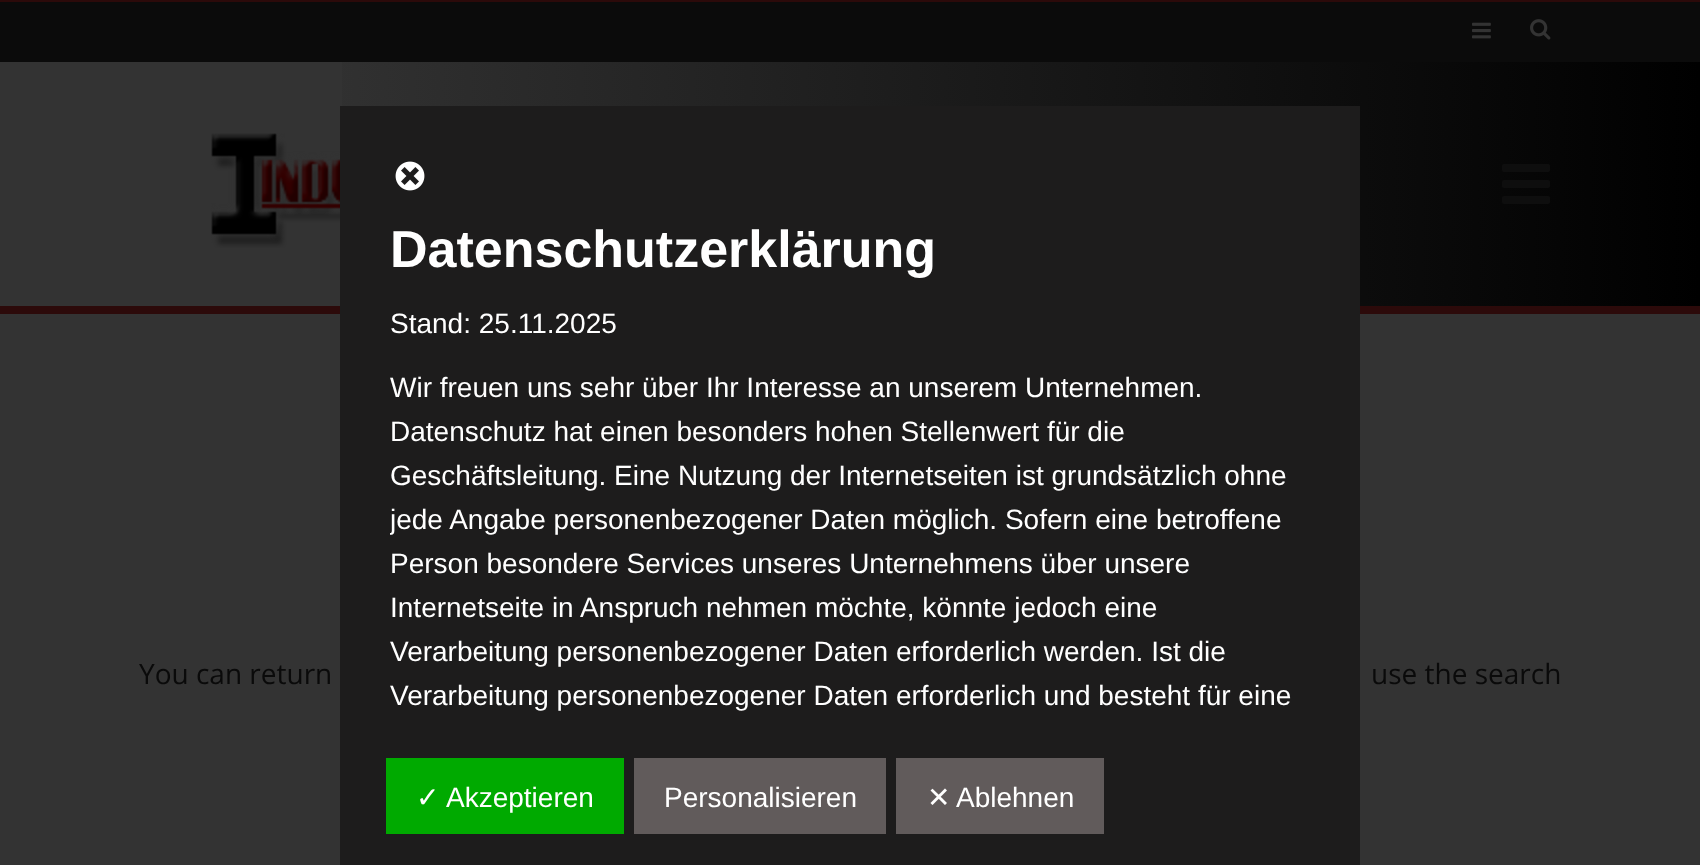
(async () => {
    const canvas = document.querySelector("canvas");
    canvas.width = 1700;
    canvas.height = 865;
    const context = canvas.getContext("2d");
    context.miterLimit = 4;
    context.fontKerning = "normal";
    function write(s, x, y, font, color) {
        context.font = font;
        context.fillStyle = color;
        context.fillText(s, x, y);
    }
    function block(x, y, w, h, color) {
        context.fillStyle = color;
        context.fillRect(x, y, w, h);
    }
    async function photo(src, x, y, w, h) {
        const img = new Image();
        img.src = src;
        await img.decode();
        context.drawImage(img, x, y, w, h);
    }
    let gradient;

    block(0, 0, 1700, 865, "rgb(51, 51, 51)");
    gradient = context.createLinearGradient(0, 154, 1700, 154);
    gradient.addColorStop(0, "rgb(51, 51, 51)");
    gradient.addColorStop(0.16, "rgb(51, 51, 51)");
    gradient.addColorStop(1, "rgb(0, 0, 0)");
    context.fillStyle = gradient;
    context.fillRect(342, 62, 1358, 244);
    block(0, 306, 1700, 8, "rgb(44, 10, 10)");
    block(340, 106, 1020, 759, "rgb(29, 28, 28)");
    await photo("media/1.png", 395, 161, 30, 30);
    write("Datenschutzerklärung", 390, 267, "bold 52px Liberation Sans", "rgb(255, 255, 255)");
    write("Stand: 25.11.2025", 390, 333, "28px Liberation Sans", "rgb(255, 255, 255)");
    write("Wir freuen uns sehr über Ihr Interesse an unserem Unternehmen.", 390, 397, "28px Liberation Sans", "rgb(255, 255, 255)");
    write("Datenschutz hat einen besonders hohen Stellenwert für die", 390, 441, "28px Liberation Sans", "rgb(255, 255, 255)");
    write("Geschäftsleitung. Eine Nutzung der Internetseiten ist grundsätzlich ohne", 390, 485, "28px Liberation Sans", "rgb(255, 255, 255)");
    context.save();
    context.beginPath();
    context.rect(390, 200, 970, 518);
    context.clip();
    write("jede Angabe personenbezogener Daten möglich. Sofern eine betroffene", 390, 529, "28px Liberation Sans", "rgb(255, 255, 255)");
    context.restore();
    write("Person besondere Services unseres Unternehmens über unsere", 390, 573, "28px Liberation Sans", "rgb(255, 255, 255)");
    write("Internetseite in Anspruch nehmen möchte, könnte jedoch eine", 390, 617, "28px Liberation Sans", "rgb(255, 255, 255)");
    write("Verarbeitung personenbezogener Daten erforderlich werden. Ist die", 390, 661, "28px Liberation Sans", "rgb(255, 255, 255)");
    write("Verarbeitung personenbezogener Daten erforderlich und besteht für eine", 390, 705, "28px Liberation Sans", "rgb(255, 255, 255)");
    block(386, 758, 238, 76, "rgb(0, 170, 0)");
    write("✓", 416, 807, "28px DejaVu Sans", "rgb(255, 255, 255)");
    write("Akzeptieren", 446, 807, "28px Liberation Sans", "rgb(255, 255, 255)");
    block(634, 758, 252, 76, "rgb(97, 91, 91)");
    write("Personalisieren", 664, 807, "28px Liberation Sans", "rgb(255, 255, 255)");
    block(896, 758, 208, 76, "rgb(97, 91, 91)");
    write("✕", 927, 807, "28px DejaVu Sans", "rgb(255, 255, 255)");
    write("Ablehnen", 956, 807, "28px Liberation Sans", "rgb(255, 255, 255)");
    block(0, 0, 1700, 2, "rgb(44, 10, 10)");
    block(0, 2, 1700, 60, "rgb(11, 11, 11)");
    await photo("media/2.png", 1472, 22, 19, 17);
    await photo("media/3.png", 1530, 19, 21, 21);
    await photo("media/4.png", 211, 133, 129, 115);
    await photo("media/5.png", 1502, 164, 48, 40);
    write("You can return", 139, 684, "28px Open Sans", "rgb(10, 10, 10)");
    write("use the search", 1371, 684, "28px Open Sans", "rgb(10, 10, 10)");
})();
